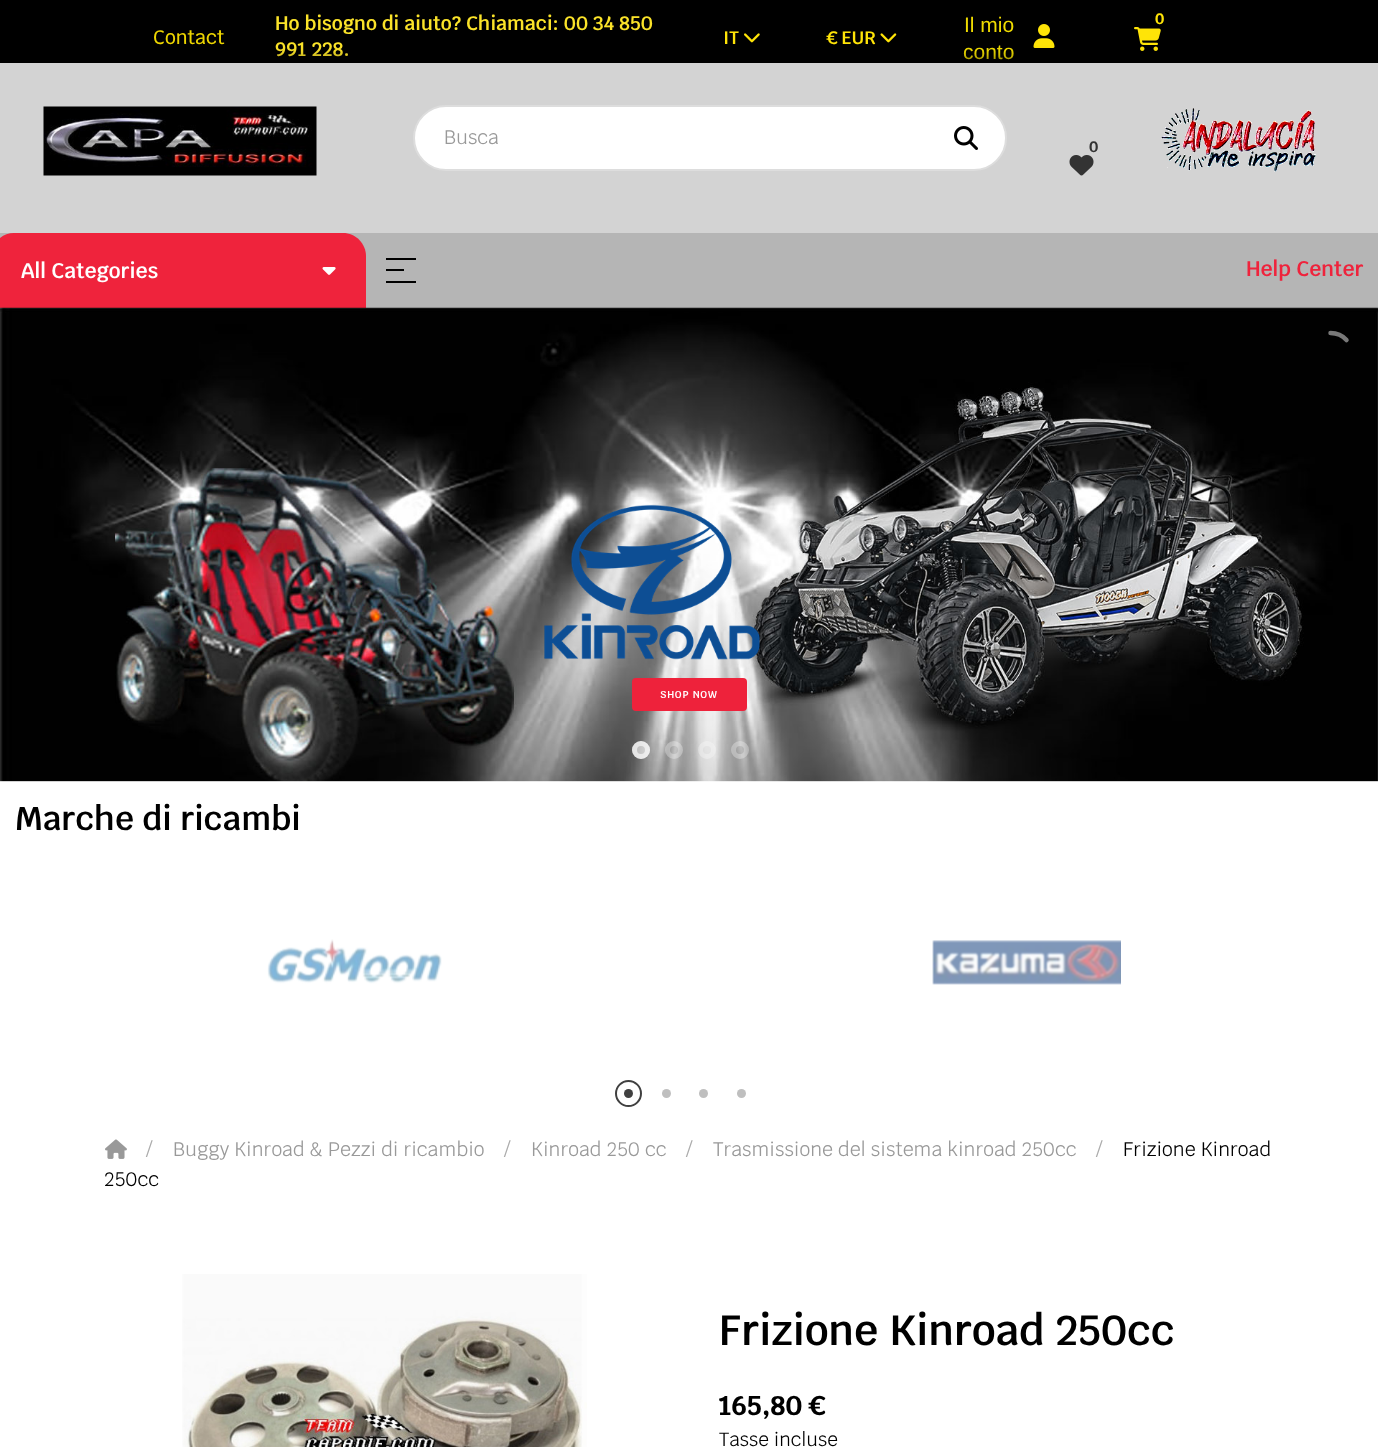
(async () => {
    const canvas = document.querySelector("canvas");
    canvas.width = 1378;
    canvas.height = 1447;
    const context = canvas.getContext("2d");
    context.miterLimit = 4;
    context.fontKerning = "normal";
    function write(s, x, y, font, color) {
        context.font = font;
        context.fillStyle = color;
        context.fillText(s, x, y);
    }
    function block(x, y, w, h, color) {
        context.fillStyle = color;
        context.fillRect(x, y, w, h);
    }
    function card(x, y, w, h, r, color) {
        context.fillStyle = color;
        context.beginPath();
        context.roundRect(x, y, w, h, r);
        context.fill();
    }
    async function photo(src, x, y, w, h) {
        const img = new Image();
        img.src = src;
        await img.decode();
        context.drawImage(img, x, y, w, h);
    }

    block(0, 0, 1378, 1447, "rgb(255, 255, 255)");
    block(0, 0, 1378, 63, "rgb(0, 0, 0)");
    write("Contact", 153, 44, "500 19.5px Krub", "rgb(237, 213, 0)");
    write("Ho bisogno di aiuto? Chiamaci: 00 34 850", 275, 30, "600 19.5px Krub", "rgb(251, 227, 41)");
    write("991 228.", 275, 56, "600 19.5px Krub", "rgb(251, 227, 41)");
    write("IT", 723, 44, "600 18px Krub", "rgb(255, 228, 7)");
    await photo("media/1.png", 744, 33, 16, 10);
    write("€ EUR", 827, 44, "600 18px Krub", "rgb(255, 228, 7)");
    await photo("media/2.png", 880, 33, 17, 10);
    write("Il mio", 964, 32, "21px Liberation Sans", "rgb(239, 219, 0)");
    write("conto", 963, 59, "21px Liberation Sans", "rgb(239, 219, 0)");
    await photo("media/3.png", 1033, 24, 22, 24);
    write("0", 1155, 24, "bold 15px Krub", "rgb(255, 228, 7)");
    await photo("media/4.png", 1134, 27, 27, 24);
    context.fillStyle = "rgba(0, 0, 0, 0.99)";
    context.filter = "blur(7.5px)";
    context.beginPath();
    context.rect(0, 63, 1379, 204);
    context.fill();
    context.filter = "none";
    block(0, 63, 1378, 170, "rgb(211, 211, 211)");
    await photo("media/5.png", 43, 106, 274, 70);
    context.fillStyle = "rgb(255, 255, 255)";
    context.beginPath();
    context.roundRect(414, 106, 592, 64, 32);
    context.fill();
    context.strokeStyle = "rgb(221, 221, 221)";
    context.lineWidth = 2;
    context.stroke();
    write("Busca", 444, 144, "19.5px Krub", "rgb(153, 153, 153)");
    await photo("media/6.png", 954, 126, 24, 24);
    await photo("media/7.png", 1161, 108, 155, 64);
    write("0", 1089, 152, "bold 15px Krub", "rgb(51, 51, 51)");
    await photo("media/8.png", 1069, 155, 25, 21);
    block(0, 233, 1378, 75, "rgb(181, 181, 181)");
    context.fillStyle = "rgb(239, 35, 60)";
    context.beginPath();
    context.moveTo(14, 233);
    context.lineTo(343, 233);
    context.bezierCurveTo(355.5, 233, 366, 243.5, 366, 256);
    context.lineTo(366, 308);
    context.lineTo(-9, 308);
    context.lineTo(-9, 256);
    context.bezierCurveTo(-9, 243.5, 1.5, 233, 14, 233);
    context.closePath();
    context.fill();
    write("All Categories", 21, 278, "600 21px Krub", "rgb(255, 255, 255)");
    await photo("media/9.png", 322, 267, 14, 8);
    block(386, 258, 30, 2, "rgb(0, 0, 0)");
    block(386, 281, 30, 2, "rgb(0, 0, 0)");
    block(386, 269, 18, 2, "rgb(0, 0, 0)");
    write("Help Center", 1246, 276, "600 21px Krub", "rgb(239, 35, 60)");
    await photo("media/10.png", 0, 307, 1378, 475);
    context.beginPath();
    context.moveTo(1330.5, 333);
    context.bezierCurveTo(1336.5, 333, 1342.5, 335.5, 1346.5, 340);
    context.strokeStyle = "rgb(120, 120, 120)";
    context.lineWidth = 4.5;
    context.lineCap = "round";
    context.stroke();
    await photo("media/11.png", 544, 504, 216, 156);
    card(632, 678, 115, 33, 4, "rgb(238, 34, 59)");
    context.letterSpacing = "0.75px";
    write("SHOP NOW", 660, 698, "600 10px Krub", "rgb(255, 255, 255)");
    context.fillStyle = "rgba(255, 255, 255, 0.6)";
    context.beginPath();
    context.arc(641, 750, 9, 0, Math.PI * 2);
    context.fill();
    context.beginPath();
    context.arc(641, 750, 6.5, 0, Math.PI * 2);
    context.strokeStyle = "rgba(255, 255, 255, 0.6)";
    context.lineWidth = 5;
    context.stroke();
    context.beginPath();
    context.arc(674, 750, 6.5, 0, Math.PI * 2);
    context.strokeStyle = "rgba(255, 255, 255, 0.3)";
    context.stroke();
    context.beginPath();
    context.arc(707, 750, 6.5, 0, Math.PI * 2);
    context.stroke();
    context.beginPath();
    context.arc(740, 750, 6.5, 0, Math.PI * 2);
    context.stroke();
    context.letterSpacing = "0px";
    write("Marche di ricambi", 15, 830, "600 33px Krub", "rgb(0, 0, 0)");
    await photo("media/12.png", 267, 939, 175, 45);
    await photo("media/13.png", 932, 940, 189, 45);
    context.fillStyle = "rgb(64, 64, 64)";
    context.beginPath();
    context.arc(628.5, 1093.5, 4.5, 0, Math.PI * 2);
    context.fill();
    context.beginPath();
    context.arc(628.5, 1093.5, 12.5, 0, Math.PI * 2);
    context.strokeStyle = "rgb(64, 64, 64)";
    context.lineWidth = 2;
    context.stroke();
    context.fillStyle = "rgb(191, 191, 191)";
    context.beginPath();
    context.arc(666.5, 1093.5, 4.5, 0, Math.PI * 2);
    context.fill();
    context.beginPath();
    context.arc(703.5, 1093.5, 4.5, 0, Math.PI * 2);
    context.fill();
    context.beginPath();
    context.arc(741.5, 1093.5, 4.5, 0, Math.PI * 2);
    context.fill();
    await photo("media/14.png", 105, 1139, 22, 20);
    write("/", 146, 1156, "19.5px Krub", "rgb(170, 170, 170)");
    write("Buggy Kinroad & Pezzi di ricambio", 173, 1156, "19.5px Krub", "rgb(153, 153, 153)");
    write("/", 504, 1156, "19.5px Krub", "rgb(170, 170, 170)");
    write("Kinroad 250 cc", 531, 1156, "19.5px Krub", "rgb(153, 153, 153)");
    write("/", 686, 1156, "19.5px Krub", "rgb(170, 170, 170)");
    write("Trasmissione del sistema kinroad 250cc", 713, 1156, "19.5px Krub", "rgb(153, 153, 153)");
    write("/", 1096, 1156, "19.5px Krub", "rgb(170, 170, 170)");
    write("Frizione Kinroad", 1123, 1156, "19.5px Krub", "rgb(0, 0, 0)");
    write("250cc", 104, 1186, "19.5px Krub", "rgb(0, 0, 0)");
    await photo("media/15.png", 182, 1274, 405, 173);
    write("Frizione Kinroad 250cc", 719, 1345, "600 42px Krub", "rgb(0, 0, 0)");
    write("165,80 €", 719, 1415, "bold 27px Krub", "rgb(0, 0, 0)");
    write("Tasse incluse", 719, 1446, "19px Krub", "rgb(0, 0, 0)");
})();
